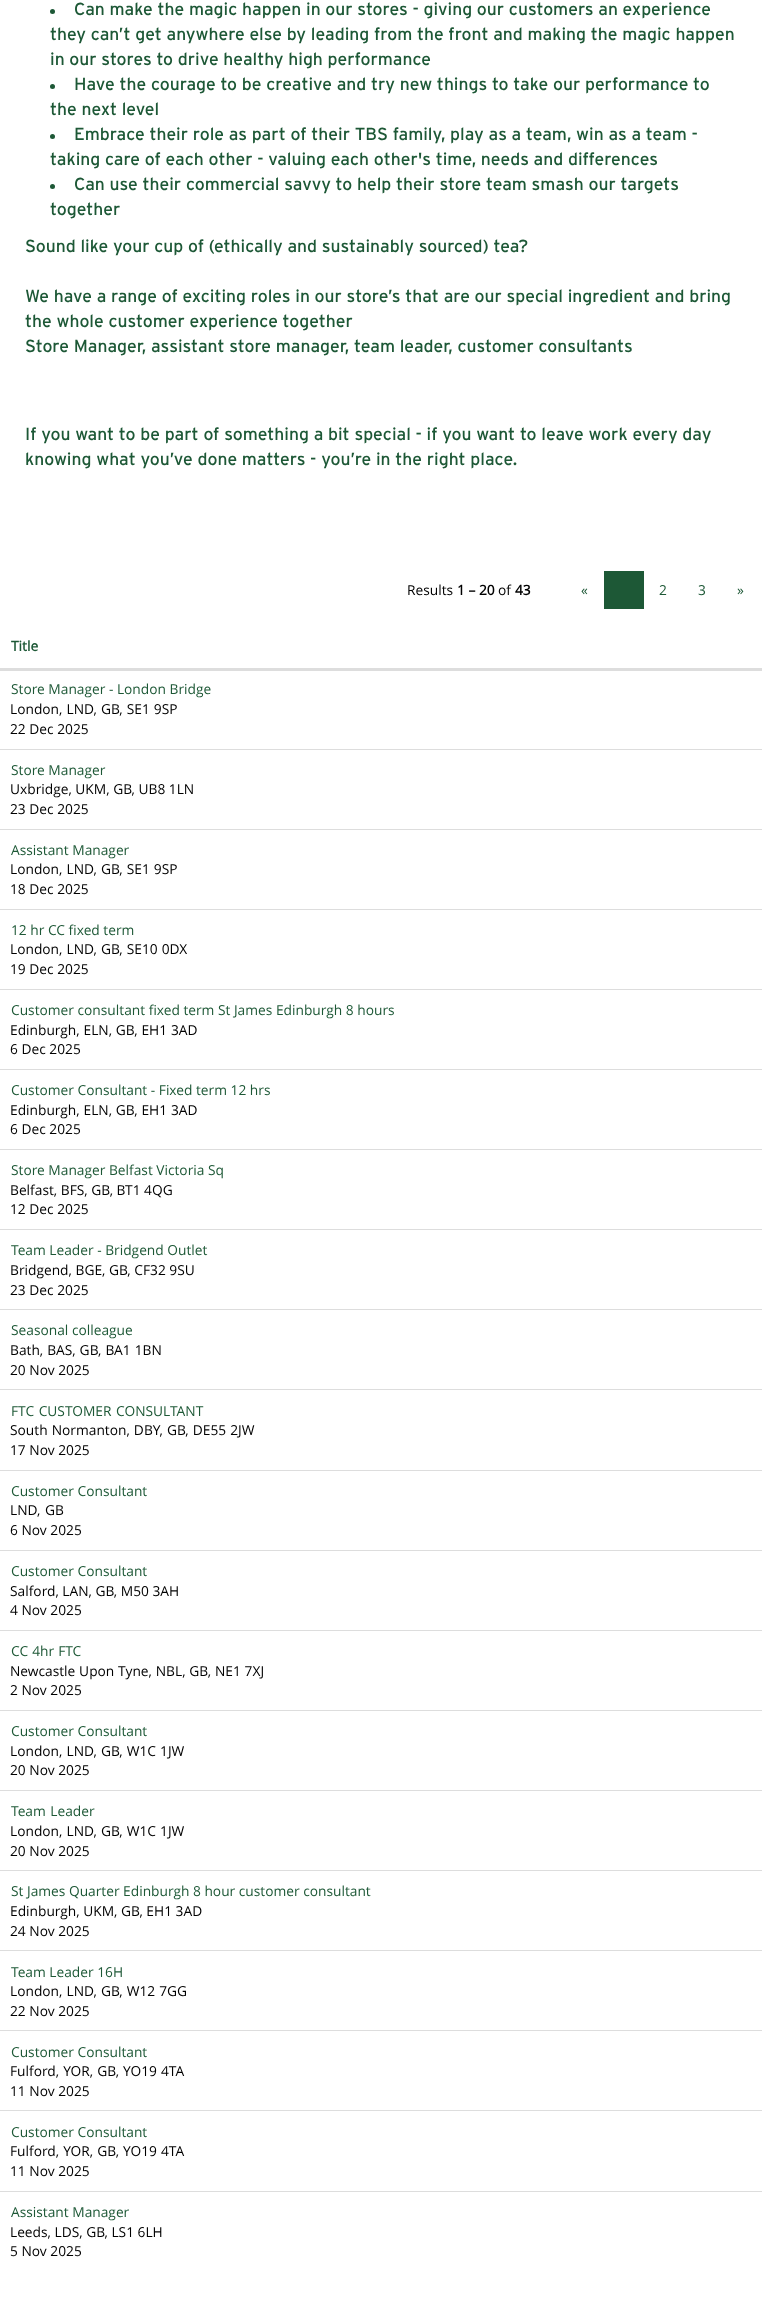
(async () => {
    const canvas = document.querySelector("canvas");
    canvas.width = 762;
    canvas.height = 2318;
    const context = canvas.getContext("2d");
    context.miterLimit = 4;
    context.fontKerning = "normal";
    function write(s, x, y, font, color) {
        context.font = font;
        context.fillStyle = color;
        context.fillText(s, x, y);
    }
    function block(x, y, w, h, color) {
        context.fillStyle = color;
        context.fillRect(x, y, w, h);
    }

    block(0, 0, 762, 2318, "rgb(255, 255, 255)");
    context.fillStyle = "rgb(29, 88, 54)";
    context.beginPath();
    context.arc(52.5, 11.5, 2.5, 0, Math.PI * 2);
    context.fill();
    write("Can make the magic happen in our stores - giving our customers an experience", 74, 15, "17.5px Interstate", "rgb(29, 88, 54)");
    write("they can’t get anywhere else by leading from the front and making the magic happen", 50, 40, "17.5px Interstate", "rgb(29, 88, 54)");
    write("in our stores to drive healthy high performance", 50, 65, "17.5px Interstate", "rgb(29, 88, 54)");
    context.beginPath();
    context.arc(52.5, 86.5, 2.5, 0, Math.PI * 2);
    context.fill();
    write("Have the courage to be creative and try new things to take our performance to", 74, 90, "17.5px Interstate", "rgb(29, 88, 54)");
    write("the next level", 50, 115, "17.5px Interstate", "rgb(29, 88, 54)");
    context.beginPath();
    context.arc(52.5, 136.5, 2.5, 0, Math.PI * 2);
    context.fill();
    write("Embrace their role as part of their TBS family, play as a team, win as a team -", 74, 140, "17.5px Interstate", "rgb(29, 88, 54)");
    write("taking care of each other - valuing each other's time, needs and differences", 50, 165, "17.5px Interstate", "rgb(29, 88, 54)");
    context.beginPath();
    context.arc(52.5, 186.5, 2.5, 0, Math.PI * 2);
    context.fill();
    write("Can use their commercial savvy to help their store team smash our targets", 74, 190, "17.5px Interstate", "rgb(29, 88, 54)");
    write("together", 50, 215, "17.5px Interstate", "rgb(29, 88, 54)");
    write("Sound like your cup of (ethically and sustainably sourced) tea?", 25, 252, "17.5px Interstate", "rgb(29, 88, 54)");
    write("We have a range of exciting roles in our store’s that are our special ingredient and bring", 25, 302, "17.5px Interstate", "rgb(29, 88, 54)");
    write("the whole customer experience together", 25, 327, "17.5px Interstate", "rgb(29, 88, 54)");
    write("Store Manager, assistant store manager, team leader, customer consultants", 25, 352, "17.5px Interstate", "rgb(29, 88, 54)");
    write("If you want to be part of something a bit special - if you want to leave work every day", 25, 440, "17.5px Interstate", "rgb(29, 88, 54)");
    write("knowing what you’ve done matters - you’re in the right place.", 25, 465, "17.5px Interstate", "rgb(29, 88, 54)");
    write("Results", 407, 595, "13.75px Open Sans", "rgb(0, 0, 0)");
    write("1 – 20", 457, 595, "bold 13.75px Open Sans", "rgb(0, 0, 0)");
    write("of", 498, 595, "13.75px Open Sans", "rgb(0, 0, 0)");
    write("43", 515, 595, "bold 13.75px Open Sans", "rgb(0, 0, 0)");
    write("«", 581, 595, "13.75px Open Sans", "rgb(29, 88, 54)");
    block(604, 571, 40, 38, "rgb(29, 88, 54)");
    write("2", 659, 595, "13.75px Open Sans", "rgb(29, 88, 54)");
    write("3", 698, 595, "13.75px Open Sans", "rgb(29, 88, 54)");
    write("»", 737, 595, "13.75px Open Sans", "rgb(29, 88, 54)");
    block(0, 668, 762, 3, "rgb(221, 221, 221)");
    write("Title", 11, 651, "bold 13.75px Open Sans", "rgb(29, 88, 54)");
    write("Store Manager - London Bridge", 11, 694, "13.75px Open Sans", "rgb(29, 88, 54)");
    context.wordSpacing = "0.5px";
    write("London, LND, GB, SE1 9SP", 10, 714, "13.75px Open Sans", "rgb(0, 0, 0)");
    context.wordSpacing = "0px";
    write("22 Dec 2025", 10, 734, "13.75px Open Sans", "rgb(0, 0, 0)");
    block(0, 749, 762, 1, "rgb(221, 221, 221)");
    write("Store Manager", 11, 775, "13.75px Open Sans", "rgb(29, 88, 54)");
    write("Uxbridge, UKM, GB, UB8 1LN", 10, 794, "13.75px Open Sans", "rgb(0, 0, 0)");
    write("23 Dec 2025", 10, 814, "13.75px Open Sans", "rgb(0, 0, 0)");
    block(0, 829, 762, 1, "rgb(221, 221, 221)");
    write("Assistant Manager", 11, 855, "13.75px Open Sans", "rgb(29, 88, 54)");
    context.wordSpacing = "0.5px";
    write("London, LND, GB, SE1 9SP", 10, 874, "13.75px Open Sans", "rgb(0, 0, 0)");
    context.wordSpacing = "0px";
    write("18 Dec 2025", 10, 894, "13.75px Open Sans", "rgb(0, 0, 0)");
    block(0, 909, 762, 1, "rgb(221, 221, 221)");
    write("12 hr CC fixed term", 11, 935, "13.75px Open Sans", "rgb(29, 88, 54)");
    context.wordSpacing = "0.5px";
    write("London, LND, GB, SE10 0DX", 10, 954, "13.75px Open Sans", "rgb(0, 0, 0)");
    context.wordSpacing = "0px";
    write("19 Dec 2025", 10, 974, "13.75px Open Sans", "rgb(0, 0, 0)");
    block(0, 989, 762, 1, "rgb(221, 221, 221)");
    write("Customer consultant fixed term St James Edinburgh 8 hours", 11, 1015, "13.75px Open Sans", "rgb(29, 88, 54)");
    context.wordSpacing = "0.25px";
    write("Edinburgh, ELN, GB, EH1 3AD", 10, 1035, "13.75px Open Sans", "rgb(0, 0, 0)");
    context.wordSpacing = "0px";
    write("6 Dec 2025", 10, 1054, "13.75px Open Sans", "rgb(0, 0, 0)");
    block(0, 1069, 762, 1, "rgb(221, 221, 221)");
    write("Customer Consultant - Fixed term 12 hrs", 11, 1095, "13.75px Open Sans", "rgb(29, 88, 54)");
    context.wordSpacing = "0.25px";
    write("Edinburgh, ELN, GB, EH1 3AD", 10, 1115, "13.75px Open Sans", "rgb(0, 0, 0)");
    context.wordSpacing = "0px";
    write("6 Dec 2025", 10, 1134, "13.75px Open Sans", "rgb(0, 0, 0)");
    block(0, 1149, 762, 1, "rgb(221, 221, 221)");
    write("Store Manager Belfast Victoria Sq", 11, 1175, "13.75px Open Sans", "rgb(29, 88, 54)");
    write("Belfast, BFS, GB, BT1 4QG", 10, 1195, "13.75px Open Sans", "rgb(0, 0, 0)");
    write("12 Dec 2025", 10, 1214, "13.75px Open Sans", "rgb(0, 0, 0)");
    block(0, 1229, 762, 1, "rgb(221, 221, 221)");
    write("Team Leader - Bridgend Outlet", 11, 1255, "13.75px Open Sans", "rgb(29, 88, 54)");
    write("Bridgend, BGE, GB, CF32 9SU", 10, 1275, "13.75px Open Sans", "rgb(0, 0, 0)");
    write("23 Dec 2025", 10, 1295, "13.75px Open Sans", "rgb(0, 0, 0)");
    block(0, 1309, 762, 1, "rgb(221, 221, 221)");
    write("Seasonal colleague", 11, 1335, "13.75px Open Sans", "rgb(29, 88, 54)");
    context.wordSpacing = "0.5px";
    write("Bath, BAS, GB, BA1 1BN", 10, 1355, "13.75px Open Sans", "rgb(0, 0, 0)");
    context.wordSpacing = "0px";
    write("20 Nov 2025", 10, 1375, "13.75px Open Sans", "rgb(0, 0, 0)");
    block(0, 1389, 762, 1, "rgb(221, 221, 221)");
    context.wordSpacing = "1px";
    write("FTC CUSTOMER CONSULTANT", 11, 1416, "13.75px Open Sans", "rgb(29, 88, 54)");
    context.wordSpacing = "0.5px";
    write("South Normanton, DBY, GB, DE55 2JW", 10, 1435, "13.75px Open Sans", "rgb(0, 0, 0)");
    context.wordSpacing = "0px";
    write("17 Nov 2025", 10, 1455, "13.75px Open Sans", "rgb(0, 0, 0)");
    block(0, 1470, 762, 1, "rgb(221, 221, 221)");
    write("Customer Consultant", 11, 1496, "13.75px Open Sans", "rgb(29, 88, 54)");
    context.wordSpacing = "1px";
    write("LND, GB", 10, 1515, "13.75px Open Sans", "rgb(0, 0, 0)");
    context.wordSpacing = "0px";
    write("6 Nov 2025", 10, 1535, "13.75px Open Sans", "rgb(0, 0, 0)");
    block(0, 1550, 762, 1, "rgb(221, 221, 221)");
    write("Customer Consultant", 11, 1576, "13.75px Open Sans", "rgb(29, 88, 54)");
    write("Salford, LAN, GB, M50 3AH", 10, 1596, "13.75px Open Sans", "rgb(0, 0, 0)");
    write("4 Nov 2025", 10, 1615, "13.75px Open Sans", "rgb(0, 0, 0)");
    block(0, 1630, 762, 1, "rgb(221, 221, 221)");
    context.wordSpacing = "0.5px";
    write("CC 4hr FTC", 11, 1656, "13.75px Open Sans", "rgb(29, 88, 54)");
    context.wordSpacing = "0.25px";
    write("Newcastle Upon Tyne, NBL, GB, NE1 7XJ", 10, 1676, "13.75px Open Sans", "rgb(0, 0, 0)");
    context.wordSpacing = "0px";
    write("2 Nov 2025", 10, 1695, "13.75px Open Sans", "rgb(0, 0, 0)");
    block(0, 1710, 762, 1, "rgb(221, 221, 221)");
    write("Customer Consultant", 11, 1736, "13.75px Open Sans", "rgb(29, 88, 54)");
    context.wordSpacing = "0.5px";
    write("London, LND, GB, W1C 1JW", 10, 1756, "13.75px Open Sans", "rgb(0, 0, 0)");
    context.wordSpacing = "0px";
    write("20 Nov 2025", 10, 1775, "13.75px Open Sans", "rgb(0, 0, 0)");
    block(0, 1790, 762, 1, "rgb(221, 221, 221)");
    context.wordSpacing = "1px";
    write("Team Leader", 11, 1816, "13.75px Open Sans", "rgb(29, 88, 54)");
    context.wordSpacing = "0.5px";
    write("London, LND, GB, W1C 1JW", 10, 1836, "13.75px Open Sans", "rgb(0, 0, 0)");
    context.wordSpacing = "0px";
    write("20 Nov 2025", 10, 1856, "13.75px Open Sans", "rgb(0, 0, 0)");
    block(0, 1870, 762, 1, "rgb(221, 221, 221)");
    write("St James Quarter Edinburgh 8 hour customer consultant", 11, 1896, "13.75px Open Sans", "rgb(29, 88, 54)");
    write("Edinburgh, UKM, GB, EH1 3AD", 10, 1916, "13.75px Open Sans", "rgb(0, 0, 0)");
    write("24 Nov 2025", 10, 1936, "13.75px Open Sans", "rgb(0, 0, 0)");
    block(0, 1950, 762, 1, "rgb(221, 221, 221)");
    write("Team Leader 16H", 11, 1977, "13.75px Open Sans", "rgb(29, 88, 54)");
    context.wordSpacing = "0.5px";
    write("London, LND, GB, W12 7GG", 10, 1996, "13.75px Open Sans", "rgb(0, 0, 0)");
    context.wordSpacing = "0px";
    write("22 Nov 2025", 10, 2016, "13.75px Open Sans", "rgb(0, 0, 0)");
    block(0, 2030, 762, 1, "rgb(221, 221, 221)");
    write("Customer Consultant", 11, 2057, "13.75px Open Sans", "rgb(29, 88, 54)");
    context.wordSpacing = "0.5px";
    write("Fulford, YOR, GB, YO19 4TA", 10, 2076, "13.75px Open Sans", "rgb(0, 0, 0)");
    context.wordSpacing = "0px";
    write("11 Nov 2025", 10, 2096, "13.75px Open Sans", "rgb(0, 0, 0)");
    block(0, 2110, 762, 1, "rgb(221, 221, 221)");
    write("Customer Consultant", 11, 2137, "13.75px Open Sans", "rgb(29, 88, 54)");
    context.wordSpacing = "0.5px";
    write("Fulford, YOR, GB, YO19 4TA", 10, 2156, "13.75px Open Sans", "rgb(0, 0, 0)");
    context.wordSpacing = "0px";
    write("11 Nov 2025", 10, 2176, "13.75px Open Sans", "rgb(0, 0, 0)");
    block(0, 2191, 762, 1, "rgb(221, 221, 221)");
    write("Assistant Manager", 11, 2217, "13.75px Open Sans", "rgb(29, 88, 54)");
    write("Leeds, LDS, GB, LS1 6LH", 10, 2237, "13.75px Open Sans", "rgb(0, 0, 0)");
    write("5 Nov 2025", 10, 2256, "13.75px Open Sans", "rgb(0, 0, 0)");
})();
